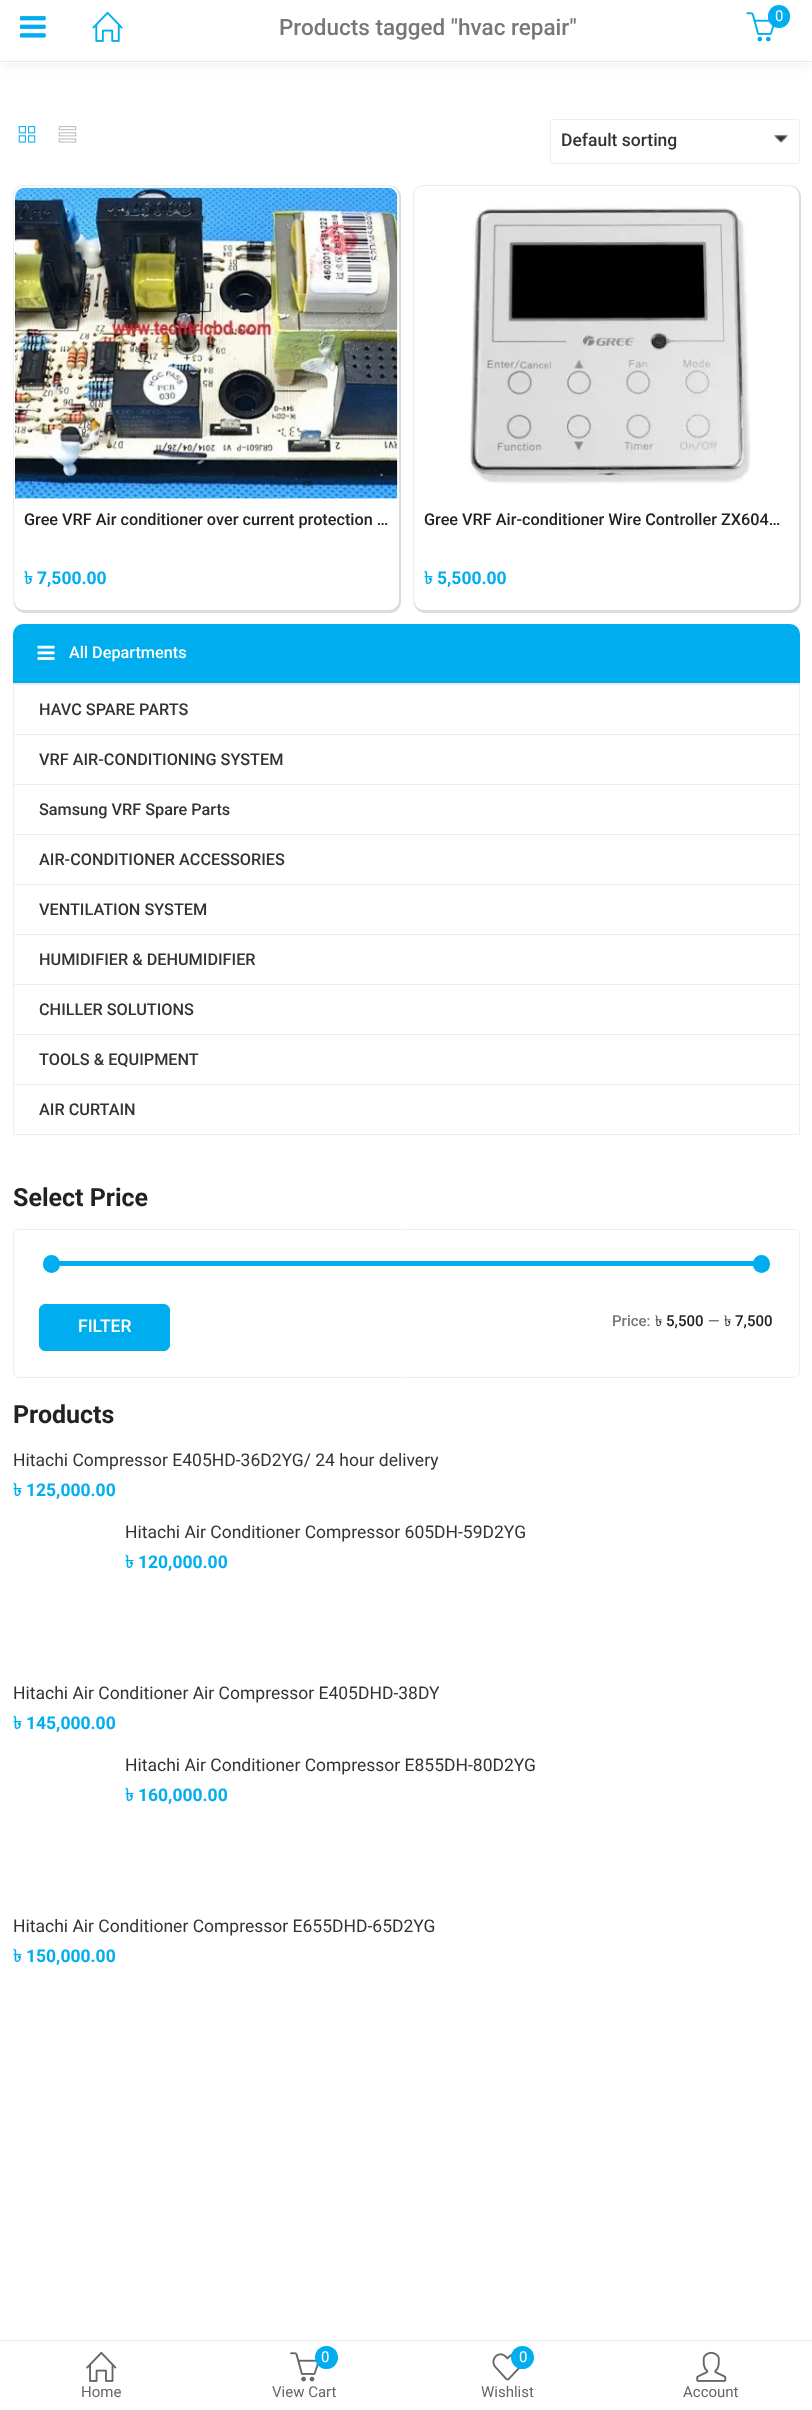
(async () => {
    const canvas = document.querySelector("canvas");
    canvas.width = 812;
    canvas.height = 2410;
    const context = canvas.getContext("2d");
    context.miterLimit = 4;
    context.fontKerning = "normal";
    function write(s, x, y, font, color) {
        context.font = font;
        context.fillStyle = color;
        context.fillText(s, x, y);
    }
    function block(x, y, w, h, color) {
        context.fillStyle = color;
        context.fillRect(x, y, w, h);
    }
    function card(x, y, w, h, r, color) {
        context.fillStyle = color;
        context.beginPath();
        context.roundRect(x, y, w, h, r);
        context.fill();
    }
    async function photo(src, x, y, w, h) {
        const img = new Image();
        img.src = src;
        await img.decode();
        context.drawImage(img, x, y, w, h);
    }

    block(0, 0, 812, 2410, "rgb(255, 255, 255)");
    context.fillStyle = "rgba(0, 0, 0, 0.06)";
    context.filter = "blur(6px)";
    context.beginPath();
    context.rect(0, 3, 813, 62);
    context.fill();
    context.filter = "none";
    block(0, 0, 812, 63, "rgb(255, 255, 255)");
    block(0, 61, 812, 1, "rgb(232, 232, 232)");
    await photo("media/1.png", 20, 16, 26, 22);
    await photo("media/2.png", 92, 11, 31, 31);
    write("Products tagged \"hvac repair\"", 279, 35, "500 22.5px Roboto", "rgb(119, 119, 119)");
    await photo("media/3.png", 746, 12, 29, 30);
    card(768, 5, 22, 23, 11, "rgb(0, 174, 239)");
    write("0", 775, 21, "15px Roboto", "rgb(255, 255, 255)");
    await photo("media/4.png", 18, 126, 18, 17);
    await photo("media/5.png", 58, 126, 19, 17);
    context.beginPath();
    context.roundRect(550.5, 119.5, 249, 44, 2);
    context.strokeStyle = "rgb(238, 238, 238)";
    context.stroke();
    write("Default sorting", 561, 146, "500 17.5px Roboto", "rgb(51, 51, 51)");
    await photo("media/6.png", 773, 134, 15, 9);
    context.beginPath();
    context.roundRect(13.5, 185.5, 386, 425, 9.5);
    context.stroke();
    context.save();
    context.beginPath();
    context.moveTo(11, 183);
    context.lineTo(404, 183);
    context.lineTo(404, 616);
    context.lineTo(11, 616);
    context.closePath();
    context.moveTo(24, 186);
    context.lineTo(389, 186);
    context.bezierCurveTo(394.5, 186, 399, 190.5, 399, 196);
    context.lineTo(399, 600);
    context.bezierCurveTo(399, 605.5, 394.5, 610, 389, 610);
    context.lineTo(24, 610);
    context.bezierCurveTo(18.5, 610, 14, 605.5, 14, 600);
    context.lineTo(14, 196);
    context.bezierCurveTo(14, 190.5, 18.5, 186, 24, 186);
    context.closePath();
    context.clip("evenodd");
    context.fillStyle = "rgb(221, 221, 221)";
    context.filter = "blur(0.5px)";
    context.beginPath();
    context.roundRect(14, 186, 387, 427, 11);
    context.fill();
    context.filter = "none";
    context.restore();
    await photo("media/7.png", 15, 187, 383, 312);
    write("Gree VRF Air conditioner over current protection …", 24, 525, "500 16.25px Roboto", "rgb(34, 34, 34)");
    write("৳", 24, 584, "bold 17.5px Lohit Bengali", "rgb(0, 174, 239)");
    write("7,500.00", 37, 584, "bold 17.5px Roboto", "rgb(0, 174, 239)");
    context.beginPath();
    context.roundRect(413.5, 185.5, 386, 425, 9.5);
    context.stroke();
    context.save();
    context.beginPath();
    context.moveTo(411, 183);
    context.lineTo(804, 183);
    context.lineTo(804, 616);
    context.lineTo(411, 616);
    context.closePath();
    context.moveTo(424, 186);
    context.lineTo(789, 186);
    context.bezierCurveTo(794.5, 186, 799, 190.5, 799, 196);
    context.lineTo(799, 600);
    context.bezierCurveTo(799, 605.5, 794.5, 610, 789, 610);
    context.lineTo(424, 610);
    context.bezierCurveTo(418.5, 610, 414, 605.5, 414, 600);
    context.lineTo(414, 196);
    context.bezierCurveTo(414, 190.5, 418.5, 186, 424, 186);
    context.closePath();
    context.clip("evenodd");
    context.fillStyle = "rgb(221, 221, 221)";
    context.filter = "blur(0.5px)";
    context.beginPath();
    context.roundRect(414, 186, 387, 427, 11);
    context.fill();
    context.filter = "none";
    context.restore();
    await photo("media/8.png", 469, 206, 282, 278);
    write("Gree VRF Air-conditioner Wire Controller ZX604…", 424, 525, "500 16.25px Roboto", "rgb(34, 34, 34)");
    write("৳", 424, 584, "bold 17.5px Lohit Bengali", "rgb(0, 174, 239)");
    write("5,500.00", 437, 584, "bold 17.5px Roboto", "rgb(0, 174, 239)");
    context.beginPath();
    context.roundRect(13, 624, 787, 59, [10, 10, 0, 0]);
    context.fill();
    await photo("media/9.png", 37, 645, 18, 15);
    write("All Departments", 69, 658, "500 16.25px Roboto", "rgb(255, 255, 255)");
    context.strokeRect(13.5, 683.5, 786, 451);
    block(14, 684, 785, 1, "rgb(238, 238, 238)");
    write("HAVC SPARE PARTS", 39, 715, "500 16.25px Roboto", "rgb(51, 51, 51)");
    block(14, 734, 785, 1, "rgb(238, 238, 238)");
    write("VRF AIR-CONDITIONING SYSTEM", 39, 765, "500 16.25px Roboto", "rgb(51, 51, 51)");
    block(14, 784, 785, 1, "rgb(238, 238, 238)");
    write("Samsung VRF Spare Parts", 39, 815, "500 16.25px Roboto", "rgb(51, 51, 51)");
    block(14, 834, 785, 1, "rgb(238, 238, 238)");
    write("AIR-CONDITIONER ACCESSORIES", 39, 865, "500 16.25px Roboto", "rgb(51, 51, 51)");
    block(14, 884, 785, 1, "rgb(238, 238, 238)");
    write("VENTILATION SYSTEM", 39, 915, "500 16.25px Roboto", "rgb(51, 51, 51)");
    block(14, 934, 785, 1, "rgb(238, 238, 238)");
    write("HUMIDIFIER & DEHUMIDIFIER", 39, 965, "500 16.25px Roboto", "rgb(51, 51, 51)");
    block(14, 984, 785, 1, "rgb(238, 238, 238)");
    write("CHILLER SOLUTIONS", 39, 1015, "500 16.25px Roboto", "rgb(51, 51, 51)");
    block(14, 1034, 785, 1, "rgb(238, 238, 238)");
    write("TOOLS & EQUIPMENT", 39, 1065, "500 16.25px Roboto", "rgb(51, 51, 51)");
    block(14, 1084, 785, 1, "rgb(238, 238, 238)");
    write("AIR CURTAIN", 39, 1115, "500 16.25px Roboto", "rgb(51, 51, 51)");
    write("Select Price", 13, 1206, "bold 25px Roboto", "rgb(34, 34, 34)");
    context.beginPath();
    context.roundRect(13.5, 1229.5, 786, 148, 5.5);
    context.stroke();
    block(51, 1261, 710, 5, "rgb(0, 174, 239)");
    card(43, 1255, 17, 18, 8.5, "rgb(0, 174, 239)");
    card(753, 1255, 17, 18, 8.5, "rgb(0, 174, 239)");
    context.beginPath();
    context.roundRect(39.5, 1304.5, 130, 46, 5.5);
    context.fill();
    context.strokeStyle = "rgb(0, 174, 239)";
    context.stroke();
    write("FILTER", 78, 1332, "500 17.5px Roboto", "rgb(255, 255, 255)");
    write("Price:", 612, 1326, "500 15px Roboto", "rgb(119, 119, 119)");
    write("৳", 655, 1326, "15px Lohit Bengali", "rgb(34, 34, 34)");
    write("5,500", 666, 1326, "500 15px Roboto", "rgb(34, 34, 34)");
    write("—", 708, 1326, "500 15px Roboto", "rgb(119, 119, 119)");
    write("৳", 724, 1326, "15px Lohit Bengali", "rgb(34, 34, 34)");
    write("7,500", 735, 1326, "500 15px Roboto", "rgb(34, 34, 34)");
    write("Products", 13, 1423, "bold 25px Roboto", "rgb(34, 34, 34)");
    write("Hitachi Compressor E405HD-36D2YG/ 24 hour delivery", 13, 1466, "17.5px Roboto", "rgb(51, 51, 51)");
    write("৳", 13, 1496, "bold 17.5px Lohit Bengali", "rgb(0, 174, 239)");
    write("125,000.00", 26, 1496, "bold 17.5px Roboto", "rgb(0, 174, 239)");
    write("Hitachi Air Conditioner Compressor 605DH-59D2YG", 125, 1538, "17.5px Roboto", "rgb(51, 51, 51)");
    write("৳", 125, 1568, "bold 17.5px Lohit Bengali", "rgb(0, 174, 239)");
    write("120,000.00", 138, 1568, "bold 17.5px Roboto", "rgb(0, 174, 239)");
    write("Hitachi Air Conditioner Air Compressor E405DHD-38DY", 13, 1699, "17.5px Roboto", "rgb(51, 51, 51)");
    write("৳", 13, 1729, "bold 17.5px Lohit Bengali", "rgb(0, 174, 239)");
    write("145,000.00", 26, 1729, "bold 17.5px Roboto", "rgb(0, 174, 239)");
    write("Hitachi Air Conditioner Compressor E855DH-80D2YG", 125, 1771, "17.5px Roboto", "rgb(51, 51, 51)");
    write("৳", 125, 1801, "bold 17.5px Lohit Bengali", "rgb(0, 174, 239)");
    write("160,000.00", 138, 1801, "bold 17.5px Roboto", "rgb(0, 174, 239)");
    write("Hitachi Air Conditioner Compressor E655DHD-65D2YG", 13, 1932, "17.5px Roboto", "rgb(51, 51, 51)");
    write("৳", 13, 1962, "bold 17.5px Lohit Bengali", "rgb(0, 174, 239)");
    write("150,000.00", 26, 1962, "bold 17.5px Roboto", "rgb(0, 174, 239)");
    block(0, 2340, 812, 1, "rgb(232, 232, 232)");
    await photo("media/10.png", 86, 2351, 31, 31);
    write("Home", 81, 2397, "15px Roboto", "rgb(102, 102, 102)");
    await photo("media/11.png", 290, 2352, 29, 30);
    context.fillStyle = "rgb(0, 174, 239)";
    context.beginPath();
    context.arc(326.5, 2357.5, 11.5, 0, Math.PI * 2);
    context.fill();
    write("0", 321, 2362, "15px Roboto", "rgb(255, 255, 255)");
    write("View Cart", 272, 2397, "15px Roboto", "rgb(102, 102, 102)");
    await photo("media/12.png", 492, 2353, 29, 28);
    context.fillStyle = "rgb(0, 174, 239)";
    context.beginPath();
    context.arc(522.5, 2357.5, 11.5, 0, Math.PI * 2);
    context.fill();
    write("0", 519, 2362, "15px Roboto", "rgb(255, 255, 255)");
    write("Wishlist", 481, 2397, "15px Roboto", "rgb(102, 102, 102)");
    await photo("media/13.png", 696, 2351, 31, 31);
    write("Account", 683, 2397, "15px Roboto", "rgb(102, 102, 102)");
})();
